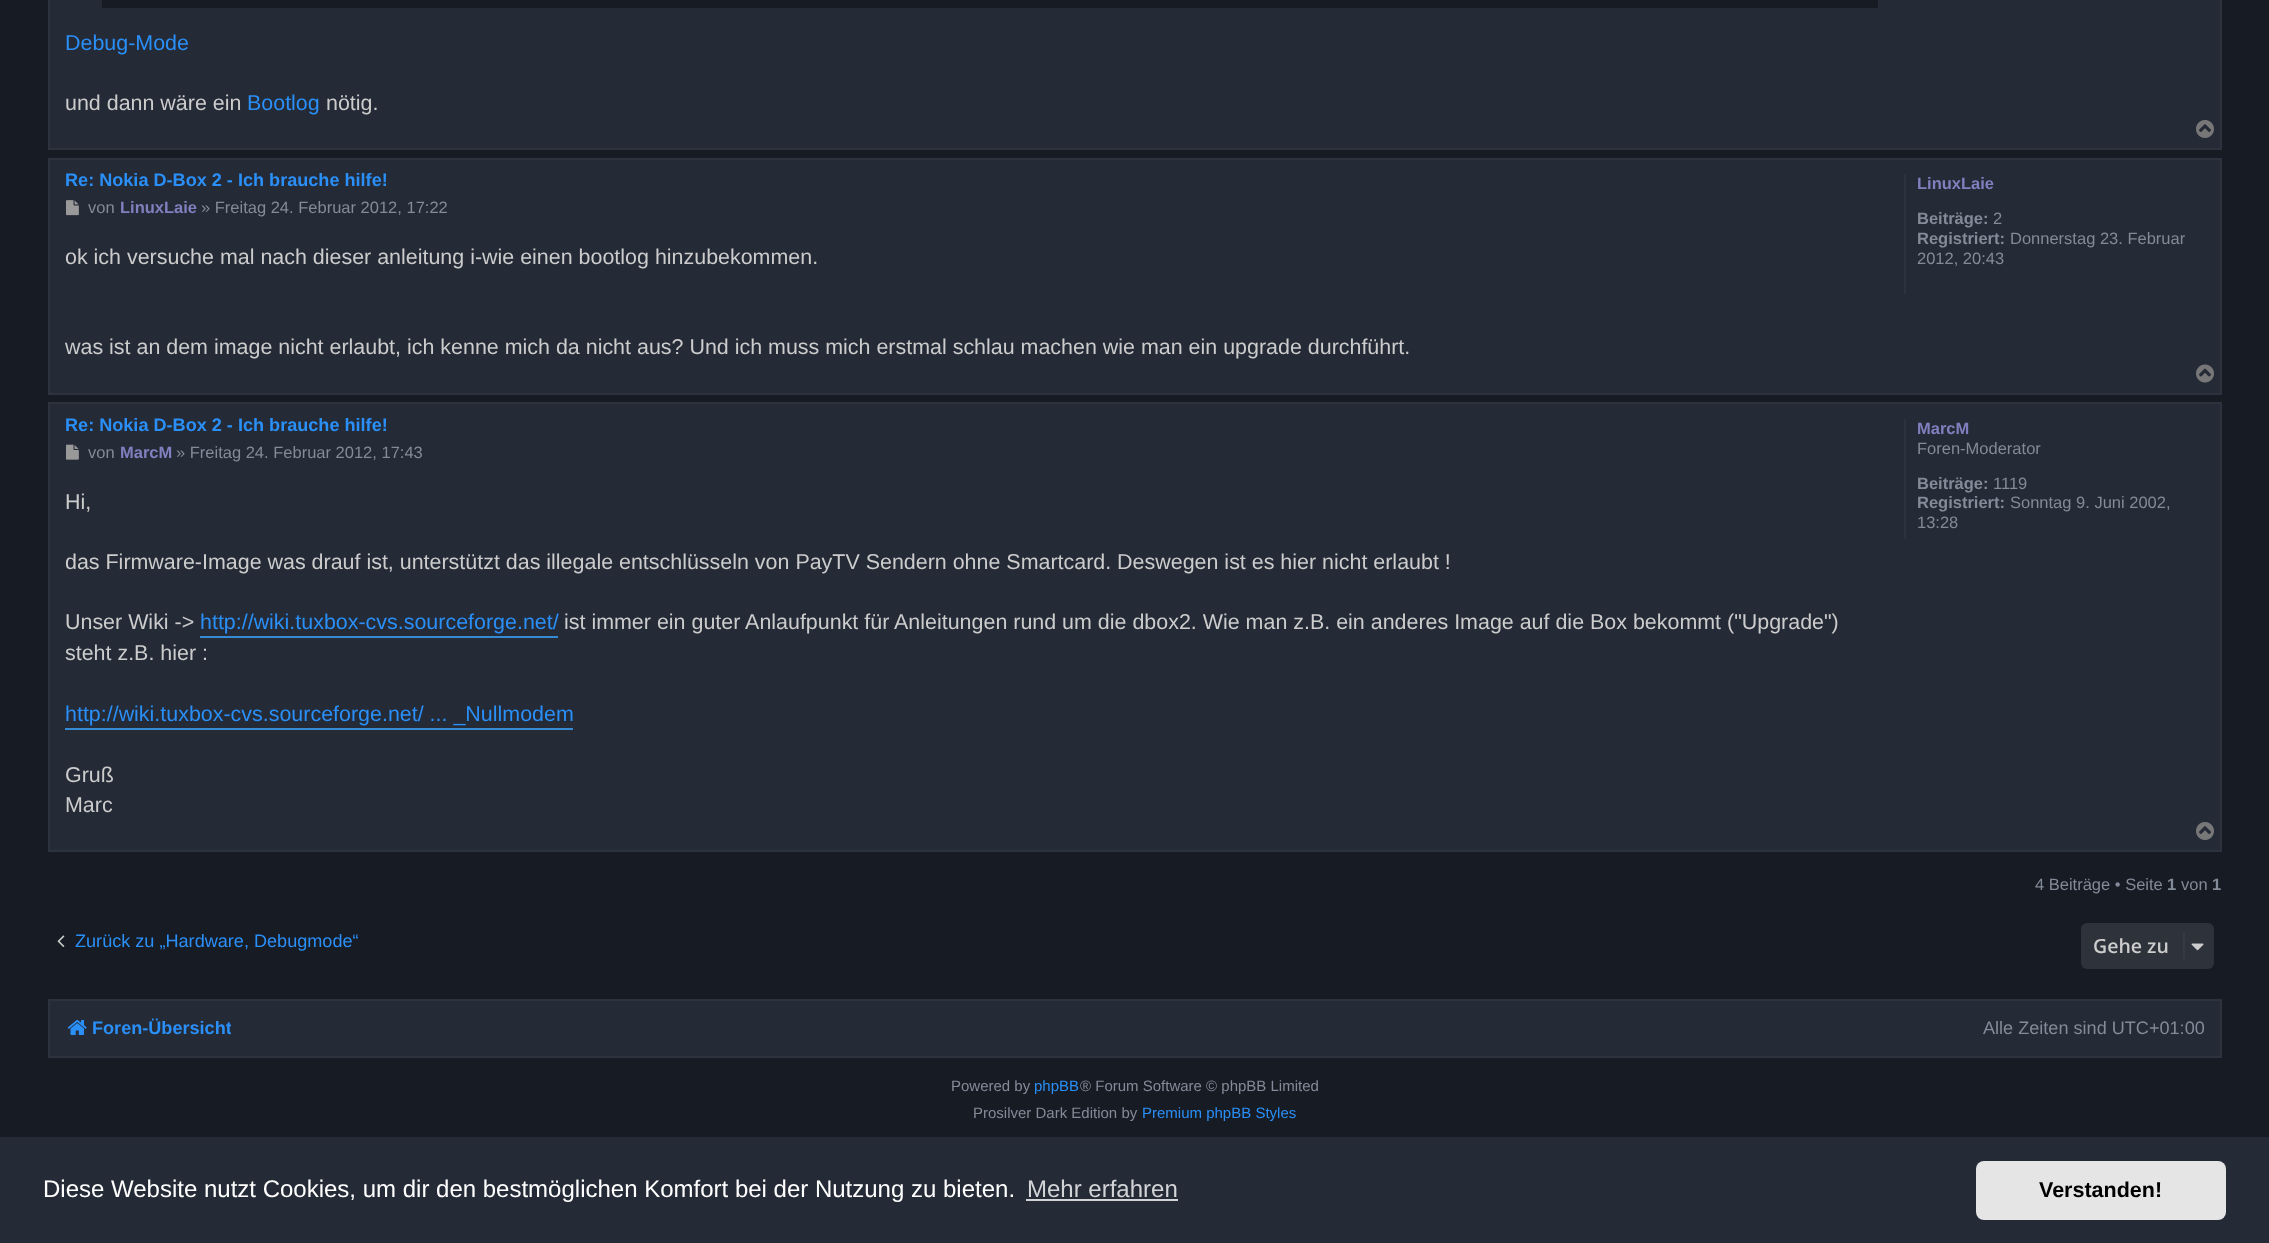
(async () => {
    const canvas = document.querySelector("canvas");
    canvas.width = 2269;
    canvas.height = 1243;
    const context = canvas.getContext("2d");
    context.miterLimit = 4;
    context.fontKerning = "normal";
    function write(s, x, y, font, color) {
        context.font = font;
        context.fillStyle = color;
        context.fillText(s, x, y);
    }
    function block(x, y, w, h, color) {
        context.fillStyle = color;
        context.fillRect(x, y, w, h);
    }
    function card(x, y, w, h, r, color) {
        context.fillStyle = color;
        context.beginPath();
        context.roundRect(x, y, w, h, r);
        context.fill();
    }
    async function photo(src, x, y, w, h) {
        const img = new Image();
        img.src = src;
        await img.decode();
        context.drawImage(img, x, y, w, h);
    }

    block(0, 0, 2269, 1243, "rgb(23, 27, 36)");
    context.fillStyle = "rgb(36, 42, 54)";
    context.beginPath();
    context.rect(49, -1, 2172, 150);
    context.fill();
    context.strokeStyle = "rgb(45, 51, 62)";
    context.lineWidth = 2;
    context.stroke();
    block(102, 0, 1776, 8, "rgb(23, 27, 36)");
    write("Debug-Mode", 65, 50, "21.45px Liberation Sans", "rgb(42, 143, 247)");
    write("und dann wäre ein", 65, 110, "21.45px Liberation Sans", "rgb(204, 204, 204)");
    write("Bootlog", 247, 110, "21.45px Liberation Sans", "rgb(42, 143, 247)");
    write("nötig.", 326, 110, "21.45px Liberation Sans", "rgb(204, 204, 204)");
    await photo("media/1.png", 2196, 120, 18, 18);
    context.fillStyle = "rgb(36, 42, 54)";
    context.beginPath();
    context.rect(49, 159, 2172, 235);
    context.fill();
    context.stroke();
    write("Re: Nokia D-Box 2 - Ich brauche hilfe!", 65, 186, "bold 18.1px Liberation Sans", "rgb(42, 143, 247)");
    await photo("media/2.png", 66, 200, 13, 16);
    write("von", 88, 213, "16.5px Liberation Sans", "rgb(131, 139, 152)");
    write("LinuxLaie", 120, 213, "bold 16.5px Liberation Sans", "rgb(128, 128, 191)");
    write("» Freitag 24. Februar 2012, 17:22", 201, 213, "16.5px Liberation Sans", "rgb(131, 139, 152)");
    write("ok ich versuche mal nach dieser anleitung i-wie einen bootlog hinzubekommen.", 65, 264, "21.45px Liberation Sans", "rgb(204, 204, 204)");
    write("was ist an dem image nicht erlaubt, ich kenne mich da nicht aus? Und ich muss mich erstmal schlau machen wie man ein upgrade durchführt.", 65, 354, "21.45px Liberation Sans", "rgb(204, 204, 204)");
    block(1904, 174, 2, 120, "rgb(45, 51, 62)");
    write("LinuxLaie", 1917, 189, "bold 16.5px Liberation Sans", "rgb(128, 128, 191)");
    write("Beiträge:", 1917, 224, "bold 16.5px Liberation Sans", "rgb(131, 139, 152)");
    write("2", 1993, 224, "16.5px Liberation Sans", "rgb(131, 139, 152)");
    write("Registriert:", 1917, 244, "bold 16.5px Liberation Sans", "rgb(131, 139, 152)");
    write("Donnerstag 23. Februar", 2010, 244, "16.5px Liberation Sans", "rgb(131, 139, 152)");
    write("2012, 20:43", 1917, 264, "16.5px Liberation Sans", "rgb(131, 139, 152)");
    await photo("media/3.png", 2196, 364, 18, 19);
    context.fillStyle = "rgb(36, 42, 54)";
    context.beginPath();
    context.rect(49, 403, 2172, 448);
    context.fill();
    context.stroke();
    write("Re: Nokia D-Box 2 - Ich brauche hilfe!", 65, 431, "bold 18.1px Liberation Sans", "rgb(42, 143, 247)");
    await photo("media/4.png", 66, 444, 13, 16);
    write("von", 88, 458, "16.5px Liberation Sans", "rgb(131, 139, 152)");
    write("MarcM", 120, 458, "bold 16.5px Liberation Sans", "rgb(128, 128, 191)");
    write("» Freitag 24. Februar 2012, 17:43", 176, 458, "16.5px Liberation Sans", "rgb(131, 139, 152)");
    write("Hi,", 65, 509, "21.45px Liberation Sans", "rgb(204, 204, 204)");
    write("das Firmware-Image was drauf ist, unterstützt das illegale entschlüsseln von PayTV Sendern ohne Smartcard. Deswegen ist es hier nicht erlaubt !", 65, 569, "21.45px Liberation Sans", "rgb(204, 204, 204)");
    write("Unser Wiki ->", 65, 629, "21.45px Liberation Sans", "rgb(204, 204, 204)");
    block(200, 636, 358, 2, "rgb(54, 138, 210)");
    write("http://wiki.tuxbox-cvs.sourceforge.net/", 200, 629, "21.45px Liberation Sans", "rgb(42, 143, 247)");
    write("ist immer ein guter Anlaufpunkt für Anleitungen rund um die dbox2. Wie man z.B. ein anderes Image auf die Box bekommt (\"Upgrade\")", 564, 629, "21.45px Liberation Sans", "rgb(204, 204, 204)");
    write("steht z.B. hier :", 65, 660, "21.45px Liberation Sans", "rgb(204, 204, 204)");
    block(65, 728, 508, 2, "rgb(54, 138, 210)");
    write("http://wiki.tuxbox-cvs.sourceforge.net/ ... _Nullmodem", 65, 721, "21.45px Liberation Sans", "rgb(42, 143, 247)");
    write("Gruß", 65, 782, "21.45px Liberation Sans", "rgb(204, 204, 204)");
    write("Marc", 65, 812, "21.45px Liberation Sans", "rgb(204, 204, 204)");
    block(1904, 419, 2, 120, "rgb(45, 51, 62)");
    write("MarcM", 1917, 434, "bold 16.5px Liberation Sans", "rgb(128, 128, 191)");
    write("Foren-Moderator", 1917, 454, "16.5px Liberation Sans", "rgb(131, 139, 152)");
    write("Beiträge:", 1917, 489, "bold 16.5px Liberation Sans", "rgb(131, 139, 152)");
    write("1119", 1993, 489, "16.5px Liberation Sans", "rgb(131, 139, 152)");
    write("Registriert:", 1917, 508, "bold 16.5px Liberation Sans", "rgb(131, 139, 152)");
    write("Sonntag 9. Juni 2002,", 2010, 508, "16.5px Liberation Sans", "rgb(131, 139, 152)");
    write("13:28", 1917, 528, "16.5px Liberation Sans", "rgb(131, 139, 152)");
    await photo("media/1.png", 2196, 822, 18, 18);
    write("4 Beiträge • Seite", 2035, 890, "16.5px Liberation Sans", "rgb(131, 139, 152)");
    write("1", 2167, 890, "bold 16.5px Liberation Sans", "rgb(131, 139, 152)");
    write("von", 2181, 890, "16.5px Liberation Sans", "rgb(131, 139, 152)");
    write("1", 2212, 890, "bold 16.5px Liberation Sans", "rgb(131, 139, 152)");
    await photo("media/5.png", 57, 935, 8, 12);
    write("Zurück zu „Hardware, Debugmode“", 75, 947, "18.1px Liberation Sans", "rgb(42, 143, 247)");
    card(2081, 923, 133, 46, 6, "rgb(46, 50, 58)");
    write("Gehe zu", 2093, 953, "600 19.5px Open Sans", "rgb(204, 204, 204)");
    block(2183, 932, 2, 27, "rgb(54, 58, 66)");
    await photo("media/6.png", 2191, 943, 13, 8);
    context.fillStyle = "rgb(36, 42, 54)";
    context.beginPath();
    context.rect(49, 1000, 2172, 57);
    context.fill();
    context.stroke();
    await photo("media/7.png", 67, 1020, 20, 15);
    context.save();
    context.beginPath();
    context.rect(65, 1010, 166, 39);
    context.clip();
    write("Foren-Übersicht", 92, 1034, "bold 18.1px Liberation Sans", "rgb(42, 143, 247)");
    context.restore();
    write("Alle Zeiten sind UTC+01:00", 1983, 1034, "18.1px Liberation Sans", "rgb(131, 139, 152)");
    write("Powered by", 951, 1091, "15px Liberation Sans", "rgb(131, 139, 152)");
    write("phpBB", 1034, 1091, "15px Liberation Sans", "rgb(42, 143, 247)");
    write("® Forum Software © phpBB Limited", 1080, 1091, "15px Liberation Sans", "rgb(131, 139, 152)");
    write("Prosilver Dark Edition by", 973, 1118, "15px Liberation Sans", "rgb(131, 139, 152)");
    write("Premium phpBB Styles", 1142, 1118, "15px Liberation Sans", "rgb(42, 143, 247)");
    block(0, 1137, 2269, 106, "rgb(36, 42, 54)");
    write("Diese Website nutzt Cookies, um dir den bestmöglichen Komfort bei der Nutzung zu bieten.", 43, 1197, "24px Liberation Sans", "rgb(255, 255, 255)");
    write("Mehr erfahren", 1027, 1197, "24px Liberation Sans", "rgb(211, 212, 215)");
    block(1026, 1199, 152, 2, "rgb(211, 212, 215)");
    card(1976, 1161, 250, 59, 8, "rgb(229, 229, 229)");
    write("Verstanden!", 2039, 1197, "bold 21.5px Liberation Sans", "rgb(0, 0, 0)");
})();
